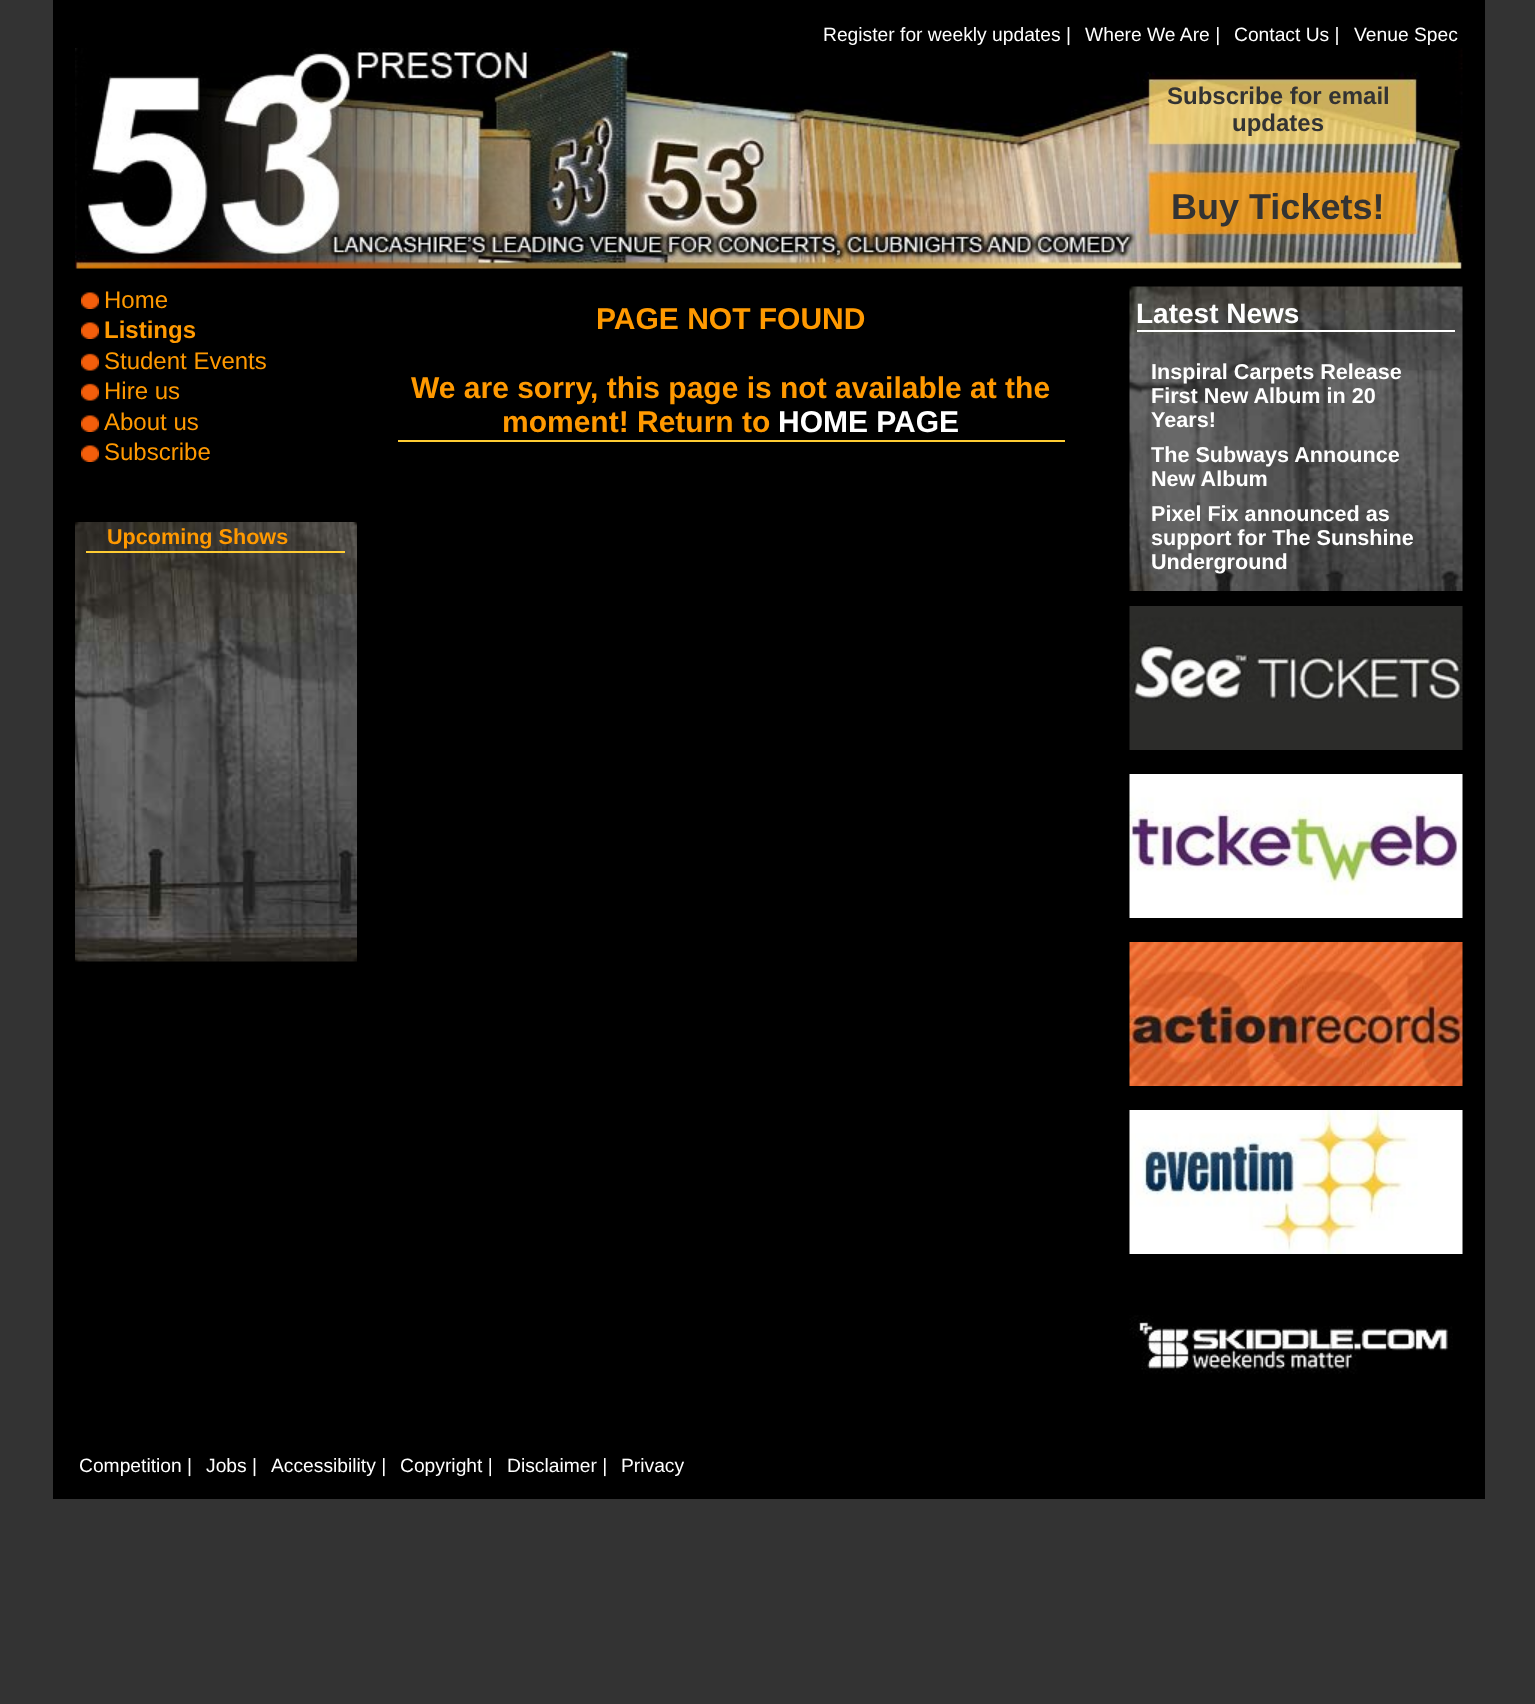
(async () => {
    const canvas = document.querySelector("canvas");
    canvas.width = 1535;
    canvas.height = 1704;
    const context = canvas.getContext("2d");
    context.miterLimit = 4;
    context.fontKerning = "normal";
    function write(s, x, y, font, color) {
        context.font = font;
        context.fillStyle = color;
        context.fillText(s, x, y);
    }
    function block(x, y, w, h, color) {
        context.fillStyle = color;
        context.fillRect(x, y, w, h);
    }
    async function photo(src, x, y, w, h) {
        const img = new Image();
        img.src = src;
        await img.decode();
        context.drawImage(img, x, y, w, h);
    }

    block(0, 0, 1535, 1704, "rgb(51, 51, 51)");
    block(53, 0, 1432, 1499, "rgb(0, 0, 0)");
    write("Register for weekly updates |", 823, 41, "19.25px Liberation Sans", "rgb(255, 255, 255)");
    write("Where We Are |", 1085, 41, "19.25px Liberation Sans", "rgb(255, 255, 255)");
    write("Contact Us |", 1234, 41, "19.25px Liberation Sans", "rgb(255, 255, 255)");
    write("Venue Spec", 1354, 41, "19.25px Liberation Sans", "rgb(255, 255, 255)");
    await photo("media/1.png", 75, 48, 1388, 221);
    write("Subscribe for email", 1167, 104, "bold 24px Liberation Sans", "rgb(51, 51, 51)");
    write("updates", 1232, 131, "bold 24px Liberation Sans", "rgb(51, 51, 51)");
    write("Buy Tickets!", 1171, 219, "bold 36px Liberation Sans", "rgb(51, 51, 51)");
    await photo("media/2.png", 81, 292, 18, 17);
    write("Home", 104, 308, "24px Liberation Sans", "rgb(255, 153, 0)");
    await photo("media/2.png", 81, 322, 18, 17);
    write("Listings", 104, 338, "bold 24px Liberation Sans", "rgb(255, 153, 0)");
    await photo("media/3.png", 81, 353, 18, 18);
    write("Student Events", 104, 369, "24px Liberation Sans", "rgb(255, 153, 0)");
    await photo("media/3.png", 81, 383, 18, 18);
    write("Hire us", 104, 399, "24px Liberation Sans", "rgb(255, 153, 0)");
    await photo("media/2.png", 81, 415, 18, 17);
    write("About us", 104, 430, "24px Liberation Sans", "rgb(255, 153, 0)");
    await photo("media/2.png", 81, 445, 18, 17);
    write("Subscribe", 104, 460, "24px Liberation Sans", "rgb(255, 153, 0)");
    await photo("media/4.png", 75, 522, 282, 440);
    block(86, 551, 259, 2, "rgb(255, 204, 51)");
    write("Upcoming Shows", 107, 544, "bold 21.6px Liberation Sans", "rgb(255, 153, 0)");
    block(398, 440, 667, 2, "rgb(255, 204, 51)");
    write("PAGE NOT FOUND", 596, 329, "bold 30px Liberation Sans", "rgb(255, 153, 0)");
    write("We are sorry, this page is not available at the", 411, 398, "bold 30px Liberation Sans", "rgb(255, 153, 0)");
    write("moment! Return to", 502, 432, "bold 30px Liberation Sans", "rgb(255, 153, 0)");
    write("HOME PAGE", 778, 432, "bold 30px Liberation Sans", "rgb(255, 255, 255)");
    await photo("media/5.png", 1129, 286, 334, 305);
    block(1137, 330, 318, 2, "rgb(255, 255, 255)");
    write("Latest News", 1136, 323, "bold 28px Liberation Sans", "rgb(255, 255, 255)");
    write("Inspiral Carpets Release", 1151, 379, "bold 21.6px Liberation Sans", "rgb(255, 255, 255)");
    write("First New Album in 20", 1151, 403, "bold 21.6px Liberation Sans", "rgb(255, 255, 255)");
    write("Years!", 1151, 427, "bold 21.6px Liberation Sans", "rgb(255, 255, 255)");
    write("The Subways Announce", 1151, 462, "bold 21.6px Liberation Sans", "rgb(255, 255, 255)");
    write("New Album", 1151, 486, "bold 21.6px Liberation Sans", "rgb(255, 255, 255)");
    write("Pixel Fix announced as", 1151, 521, "bold 21.6px Liberation Sans", "rgb(255, 255, 255)");
    write("support for The Sunshine", 1151, 545, "bold 21.6px Liberation Sans", "rgb(255, 255, 255)");
    write("Underground", 1151, 569, "bold 21.6px Liberation Sans", "rgb(255, 255, 255)");
    await photo("media/6.png", 1129, 606, 334, 144);
    await photo("media/7.png", 1129, 774, 334, 144);
    await photo("media/8.png", 1129, 942, 334, 144);
    await photo("media/9.png", 1129, 1110, 334, 144);
    await photo("media/10.png", 1129, 1315, 324, 59);
    write("Competition |", 79, 1472, "19.25px Liberation Sans", "rgb(255, 255, 255)");
    write("Jobs |", 206, 1472, "19.25px Liberation Sans", "rgb(255, 255, 255)");
    write("Accessibility |", 271, 1472, "19.25px Liberation Sans", "rgb(255, 255, 255)");
    write("Copyright |", 400, 1472, "19.25px Liberation Sans", "rgb(255, 255, 255)");
    write("Disclaimer |", 507, 1472, "19.25px Liberation Sans", "rgb(255, 255, 255)");
    write("Privacy", 621, 1472, "19.25px Liberation Sans", "rgb(255, 255, 255)");
})();
